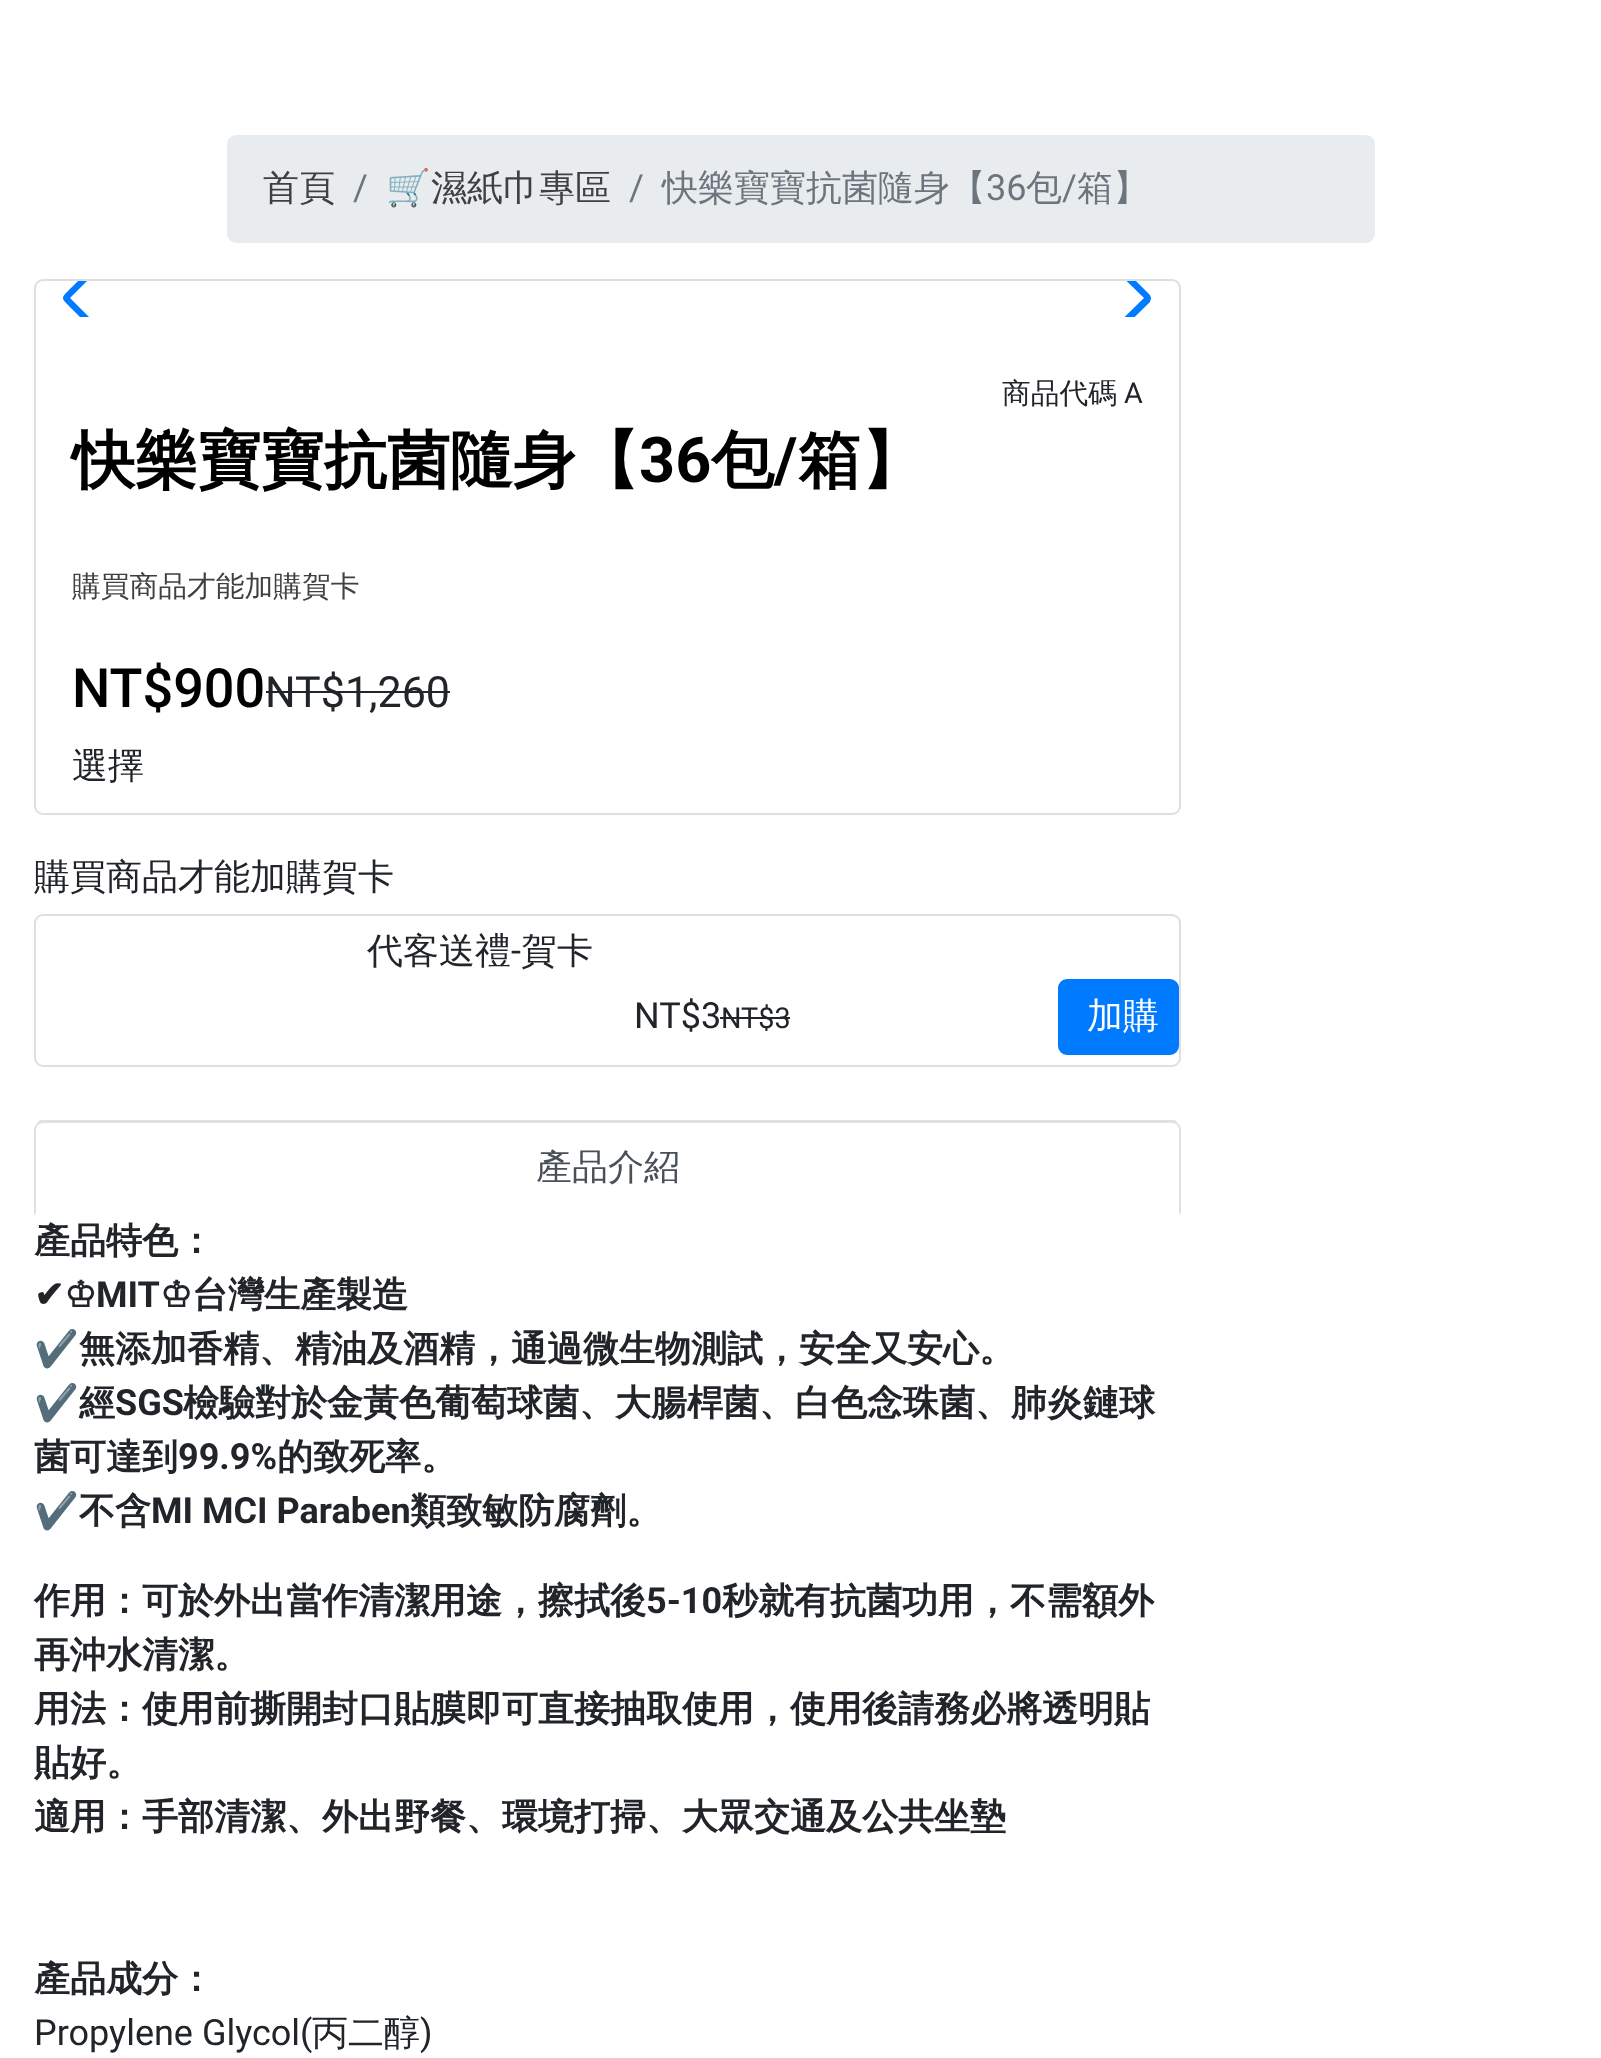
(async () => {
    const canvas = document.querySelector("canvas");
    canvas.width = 1601;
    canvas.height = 2058;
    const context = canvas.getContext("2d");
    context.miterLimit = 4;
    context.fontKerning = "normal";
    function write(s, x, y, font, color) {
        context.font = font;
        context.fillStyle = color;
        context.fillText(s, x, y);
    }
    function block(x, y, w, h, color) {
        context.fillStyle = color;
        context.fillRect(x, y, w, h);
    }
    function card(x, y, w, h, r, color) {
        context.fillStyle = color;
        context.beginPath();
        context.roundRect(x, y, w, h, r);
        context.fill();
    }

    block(0, 0, 1601, 2058, "rgb(255, 255, 255)");
    card(227, 135, 1148, 108, 9, "rgb(233, 236, 239)");
    write("首頁", 263, 200, "500 36px WenQuanYi Zen Hei", "rgb(64, 64, 64)");
    write("/", 353, 200, "36px Roboto", "rgb(108, 117, 125)");
    write("🛒", 386, 200, "36px Noto Color Emoji", "rgb(64, 64, 64)");
    write("濕紙巾專區", 431, 200, "500 36px WenQuanYi Zen Hei", "rgb(64, 64, 64)");
    write("/", 629, 200, "36px Roboto", "rgb(108, 117, 125)");
    write("快樂寶寶抗菌隨身【", 662, 200, "500 36px WenQuanYi Zen Hei", "rgb(108, 117, 125)");
    write("36", 986, 200, "36px Roboto", "rgb(108, 117, 125)");
    write("包", 1026, 200, "500 36px WenQuanYi Zen Hei", "rgb(108, 117, 125)");
    write("/", 1062, 200, "36px Roboto", "rgb(108, 117, 125)");
    write("箱】", 1077, 200, "500 36px WenQuanYi Zen Hei", "rgb(108, 117, 125)");
    context.beginPath();
    context.roundRect(35, 280, 1145, 534, 8);
    context.strokeStyle = "rgb(223, 223, 223)";
    context.lineWidth = 2;
    context.stroke();
    context.save();
    context.beginPath();
    context.rect(36, 281, 1143, 36);
    context.clip();
    context.fillStyle = "rgb(0, 122, 255)";
    context.beginPath();
    context.moveTo(108, 251);
    context.bezierCurveTo(110, 249, 114, 250, 114, 253);
    context.lineTo(113, 255);
    context.lineTo(70, 298);
    context.lineTo(113, 341);
    context.lineTo(114, 344);
    context.lineTo(112, 346);
    context.bezierCurveTo(108, 349, 101, 338, 101, 338);
    context.lineTo(72, 309);
    context.bezierCurveTo(60, 297, 60, 299, 72, 287);
    context.closePath();
    context.fill();
    context.beginPath();
    context.moveTo(1101, 345);
    context.bezierCurveTo(1100, 344, 1100, 342, 1101, 340);
    context.lineTo(1144, 298);
    context.lineTo(1101, 256);
    context.bezierCurveTo(1100, 254, 1100, 252, 1101, 251);
    context.bezierCurveTo(1103, 249, 1104, 249, 1106, 251);
    context.lineTo(1150, 295);
    context.bezierCurveTo(1150, 296, 1151, 297, 1151, 298);
    context.bezierCurveTo(1151, 299, 1150, 301, 1150, 302);
    context.lineTo(1106, 345);
    context.bezierCurveTo(1104, 347, 1103, 347, 1101, 345);
    context.closePath();
    context.fill();
    context.restore();
    write("商品代碼", 1002, 403, "500 28.75px WenQuanYi Zen Hei", "rgb(33, 37, 41)");
    write("A", 1124, 403, "28.75px Roboto", "rgb(33, 37, 41)");
    write("快樂寶寶抗菌隨身【", 72, 482, "bold 63px WenQuanYi Zen Hei", "rgb(0, 0, 0)");
    write("36", 639, 482, "bold 63px Roboto", "rgb(0, 0, 0)");
    write("包", 711, 482, "bold 63px WenQuanYi Zen Hei", "rgb(0, 0, 0)");
    write("/", 774, 482, "bold 63px Roboto", "rgb(0, 0, 0)");
    write("箱】", 798, 482, "bold 63px WenQuanYi Zen Hei", "rgb(0, 0, 0)");
    write("購買商品才能加購賀卡", 72, 596, "500 28.75px WenQuanYi Zen Hei", "rgb(64, 64, 64)");
    write("NT$900", 72, 707, "500 54px Roboto", "rgb(0, 0, 0)");
    write("NT$1,260", 265, 707, "43px Roboto", "rgb(33, 37, 41)");
    block(266, 691, 184, 2, "rgb(33, 37, 41)");
    write("選擇", 72, 778, "500 36px WenQuanYi Zen Hei", "rgb(33, 37, 41)");
    write("購買商品才能加購賀卡", 34, 889, "500 36px WenQuanYi Zen Hei", "rgb(33, 37, 41)");
    context.beginPath();
    context.roundRect(35, 915, 1145, 151, 8);
    context.stroke();
    write("代客送禮", 367, 963, "500 36px WenQuanYi Zen Hei", "rgb(33, 37, 41)");
    write("-", 511, 963, "36px Roboto", "rgb(33, 37, 41)");
    write("賀卡", 521, 963, "500 36px WenQuanYi Zen Hei", "rgb(33, 37, 41)");
    write("NT$3", 634, 1028, "36px Roboto", "rgb(33, 37, 41)");
    write("NT$3", 721, 1028, "28.75px Roboto", "rgb(33, 37, 41)");
    block(720, 1017, 70, 2, "rgb(33, 37, 41)");
    context.fillStyle = "rgb(0, 123, 255)";
    context.beginPath();
    context.roundRect(1059, 980, 119, 74, 8);
    context.fill();
    context.strokeStyle = "rgb(0, 123, 255)";
    context.stroke();
    write("加購", 1087, 1028, "500 36px WenQuanYi Zen Hei", "rgb(255, 255, 255)");
    context.fillStyle = "rgb(222, 226, 230)";
    context.beginPath();
    context.moveTo(43, 1123);
    context.bezierCurveTo(41, 1123, 39, 1124, 38, 1125);
    context.lineTo(37, 1123);
    context.lineTo(40, 1120);
    context.lineTo(1175, 1120);
    context.lineTo(1178, 1123);
    context.lineTo(1177, 1125);
    context.bezierCurveTo(1176, 1124, 1174, 1123, 1172, 1123);
    context.closePath();
    context.fill();
    context.beginPath();
    context.moveTo(1178, 1123);
    context.bezierCurveTo(1180, 1125, 1181, 1128, 1181, 1130);
    context.lineTo(1181, 1215);
    context.lineTo(1179, 1213);
    context.lineTo(1179, 1130);
    context.bezierCurveTo(1179, 1128, 1178, 1126, 1177, 1125);
    context.closePath();
    context.fill();
    context.fillStyle = "rgb(255, 255, 255)";
    context.beginPath();
    context.moveTo(34, 1215);
    context.lineTo(1181, 1215);
    context.lineTo(1179, 1213);
    context.lineTo(36, 1213);
    context.closePath();
    context.fill();
    context.fillStyle = "rgb(222, 226, 230)";
    context.beginPath();
    context.moveTo(34, 1215);
    context.lineTo(34, 1130);
    context.bezierCurveTo(34, 1128, 35, 1125, 37, 1123);
    context.lineTo(38, 1125);
    context.bezierCurveTo(37, 1126, 36, 1128, 36, 1130);
    context.lineTo(36, 1213);
    context.closePath();
    context.fill();
    write("產品介紹", 536, 1179, "500 36px WenQuanYi Zen Hei", "rgb(73, 80, 87)");
    write("產品特色：", 34, 1253, "bold 36px WenQuanYi Zen Hei", "rgb(33, 37, 41)");
    write("✔♔", 34, 1307, "bold 36px DejaVu Sans", "rgb(33, 37, 41)");
    write("MIT", 96, 1307, "bold 36px Roboto", "rgb(33, 37, 41)");
    write("♔", 160, 1307, "bold 36px DejaVu Sans", "rgb(33, 37, 41)");
    write("台灣生產製造", 192, 1307, "bold 36px WenQuanYi Zen Hei", "rgb(33, 37, 41)");
    write("✔", 34, 1361, "bold 36px Noto Color Emoji", "rgb(33, 37, 41)");
    write("無添加香精、精油及酒精，通過微生物測試，安全又安心。", 79, 1361, "bold 36px WenQuanYi Zen Hei", "rgb(33, 37, 41)");
    write("✔", 34, 1415, "bold 36px Noto Color Emoji", "rgb(33, 37, 41)");
    write("經", 79, 1415, "bold 36px WenQuanYi Zen Hei", "rgb(33, 37, 41)");
    write("SGS", 115, 1415, "bold 36px Roboto", "rgb(33, 37, 41)");
    write("檢驗對於金黃色葡萄球菌、大腸桿菌、白色念珠菌、肺炎鏈球", 183, 1415, "bold 36px WenQuanYi Zen Hei", "rgb(33, 37, 41)");
    write("菌可達到", 34, 1469, "bold 36px WenQuanYi Zen Hei", "rgb(33, 37, 41)");
    write("99.9%", 178, 1469, "bold 36px Roboto", "rgb(33, 37, 41)");
    write("的致死率。", 277, 1469, "bold 36px WenQuanYi Zen Hei", "rgb(33, 37, 41)");
    write("✔", 34, 1523, "bold 36px Noto Color Emoji", "rgb(33, 37, 41)");
    write("不含", 79, 1523, "bold 36px WenQuanYi Zen Hei", "rgb(33, 37, 41)");
    write("MI MCI Paraben", 151, 1523, "bold 36px Roboto", "rgb(33, 37, 41)");
    write("類致敏防腐劑。", 410, 1523, "bold 36px WenQuanYi Zen Hei", "rgb(33, 37, 41)");
    write("作用：可於外出當作清潔用途，擦拭後", 34, 1613, "bold 36px WenQuanYi Zen Hei", "rgb(33, 37, 41)");
    write("5-10", 646, 1613, "bold 36px Roboto", "rgb(33, 37, 41)");
    write("秒就有抗菌功用，不需額外", 722, 1613, "bold 36px WenQuanYi Zen Hei", "rgb(33, 37, 41)");
    write("再沖水清潔。", 34, 1667, "bold 36px WenQuanYi Zen Hei", "rgb(33, 37, 41)");
    write("用法：使用前撕開封口貼膜即可直接抽取使用，使用後請務必將透明貼", 34, 1721, "bold 36px WenQuanYi Zen Hei", "rgb(33, 37, 41)");
    write("貼好。", 34, 1775, "bold 36px WenQuanYi Zen Hei", "rgb(33, 37, 41)");
    write("適用：手部清潔、外出野餐、環境打掃、大眾交通及公共坐墊", 34, 1829, "bold 36px WenQuanYi Zen Hei", "rgb(33, 37, 41)");
    write("產品成分：", 34, 1991, "bold 36px WenQuanYi Zen Hei", "rgb(33, 37, 41)");
    write("Propylene Glycol(", 34, 2045, "36px Roboto", "rgb(33, 37, 41)");
    write("丙二醇", 312, 2045, "500 36px WenQuanYi Zen Hei", "rgb(33, 37, 41)");
    write(")", 420, 2045, "36px Roboto", "rgb(33, 37, 41)");
})();
